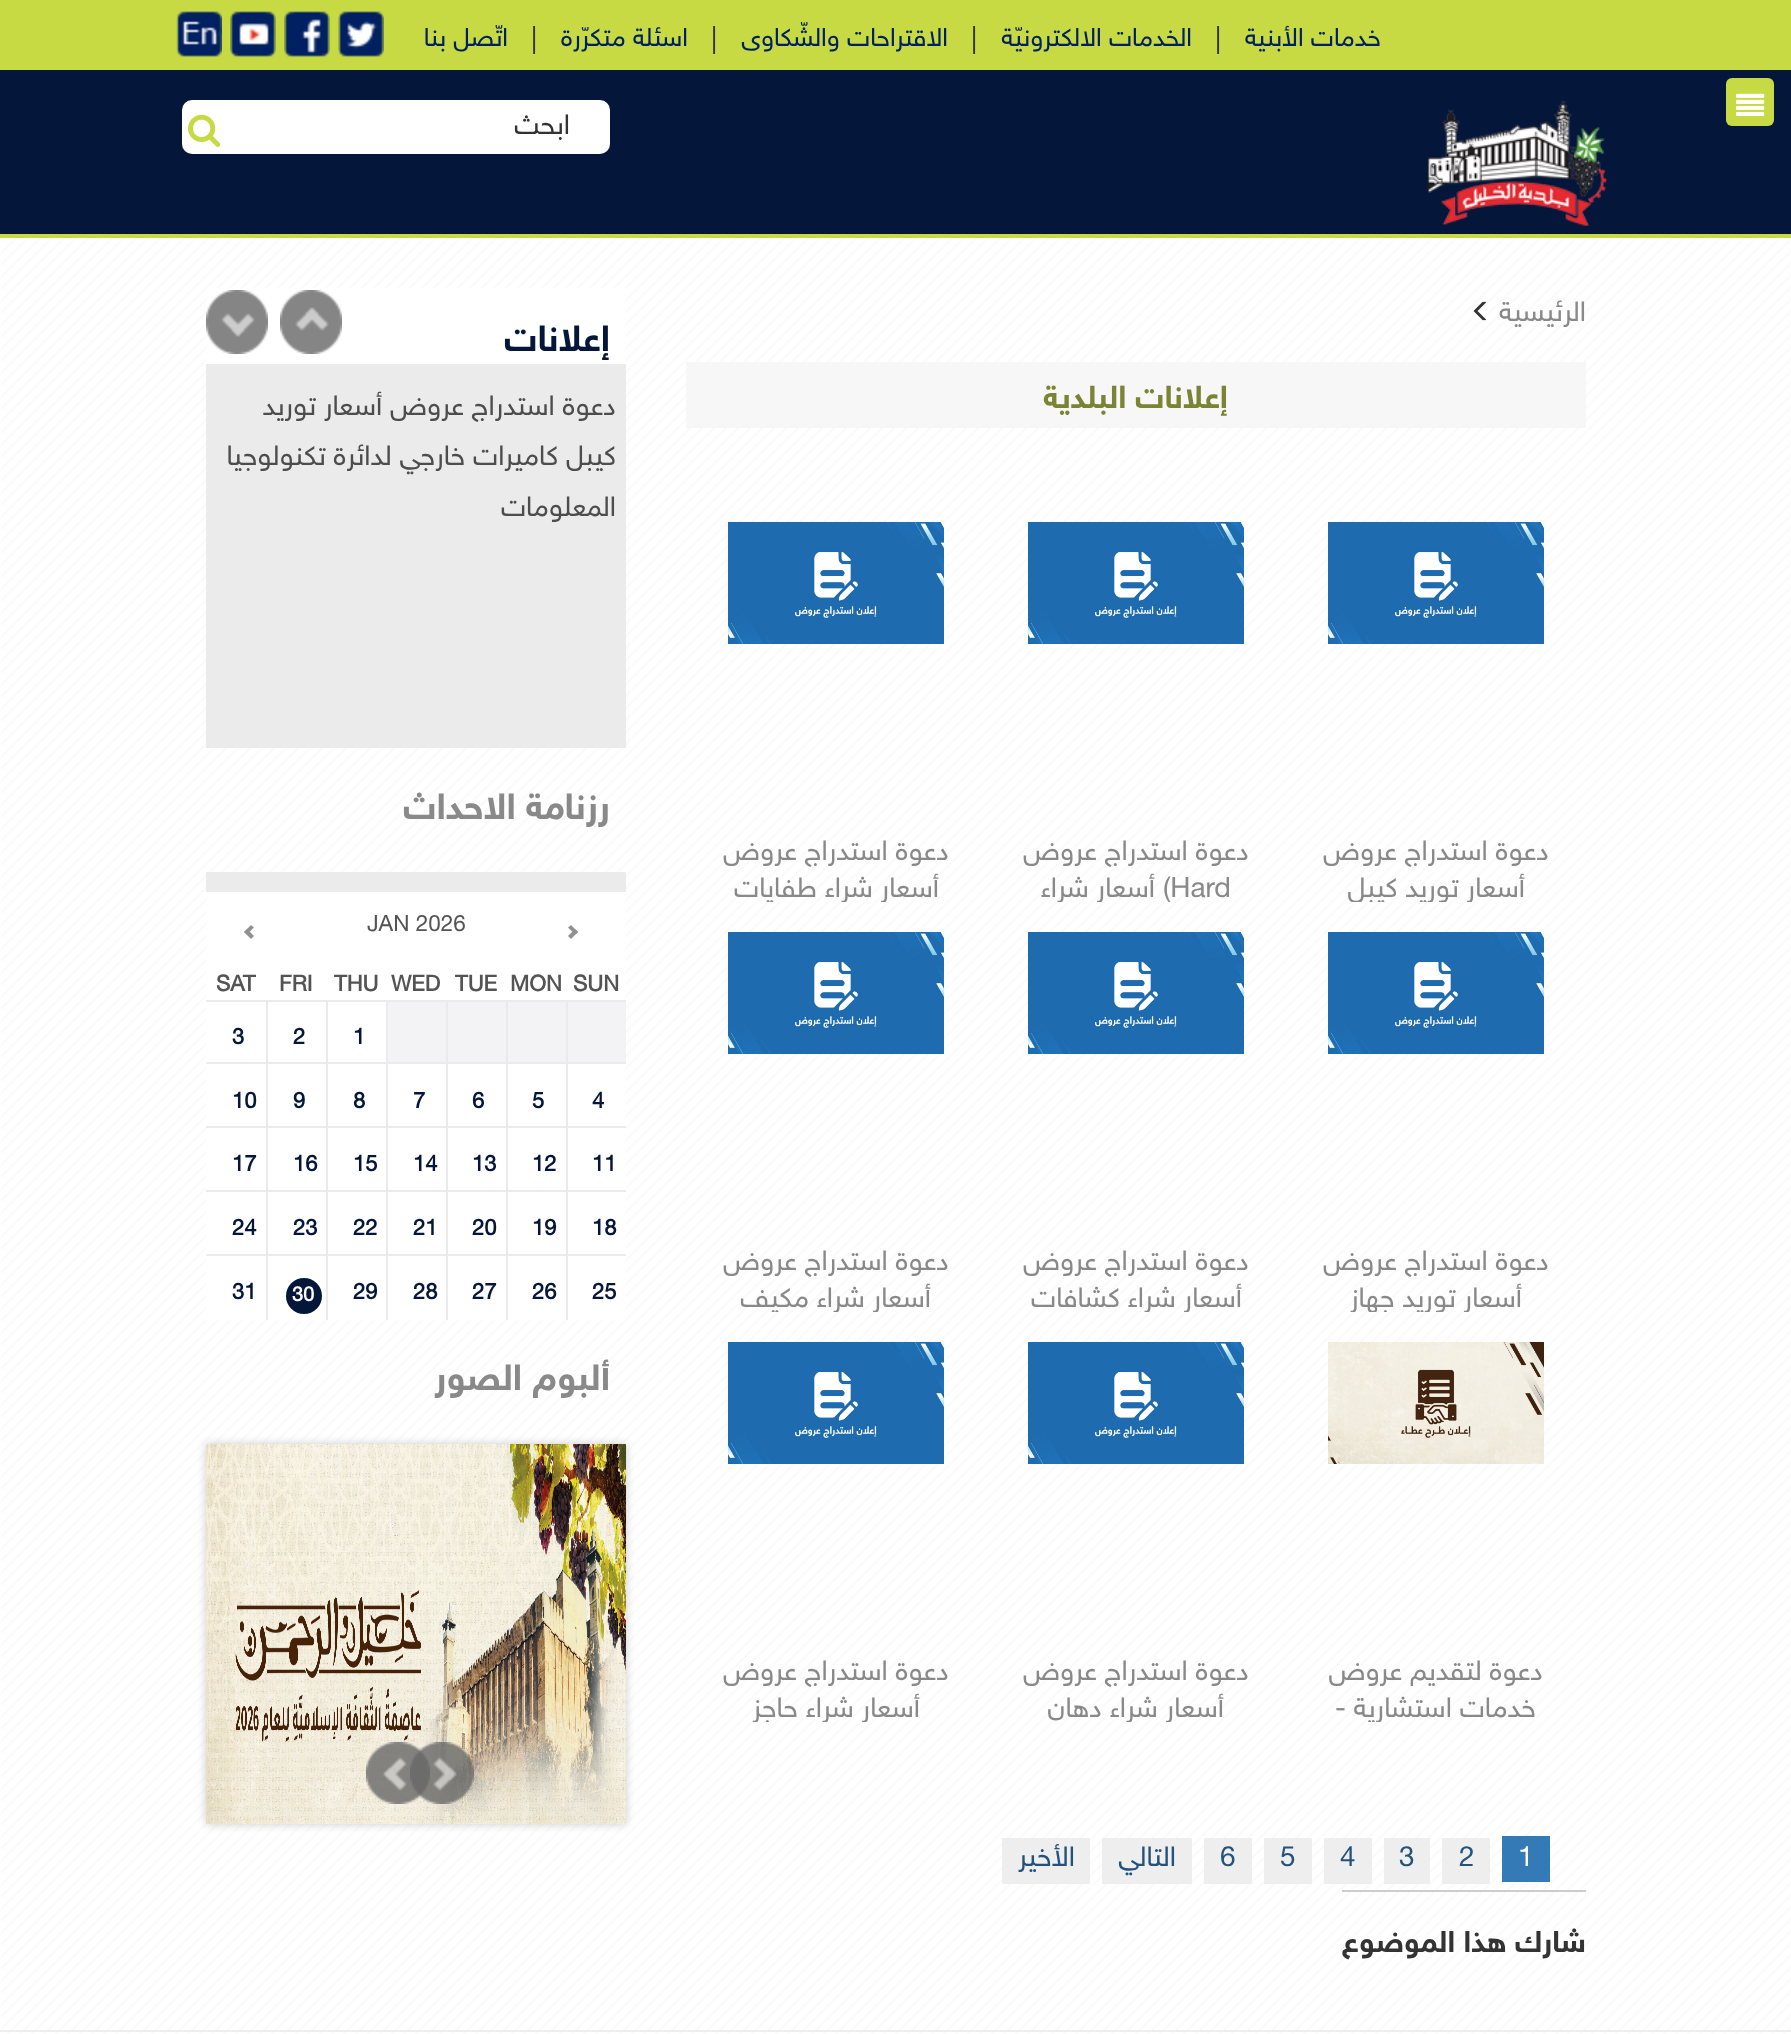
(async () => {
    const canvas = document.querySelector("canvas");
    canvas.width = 1791;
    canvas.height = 2034;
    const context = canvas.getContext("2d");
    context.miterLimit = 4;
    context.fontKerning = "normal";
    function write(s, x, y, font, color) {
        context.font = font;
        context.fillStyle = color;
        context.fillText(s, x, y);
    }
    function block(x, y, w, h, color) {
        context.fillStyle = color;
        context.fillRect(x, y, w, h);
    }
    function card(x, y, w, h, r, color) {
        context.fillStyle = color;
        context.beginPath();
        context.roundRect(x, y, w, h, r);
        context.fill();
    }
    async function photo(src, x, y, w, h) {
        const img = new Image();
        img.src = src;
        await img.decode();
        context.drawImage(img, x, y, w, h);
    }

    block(0, 0, 1791, 2034, "rgb(255, 255, 255)");
    await photo("media/1.png", 1, 238, 1790, 1796);
    block(0, 70, 1791, 164, "rgb(4, 22, 58)");
    block(0, 234, 1791, 4, "rgb(199, 218, 67)");
    card(1726, 78, 48, 48, 6, "rgb(199, 218, 67)");
    await photo("media/2.png", 1736, 93, 29, 23);
    await photo("media/3.png", 1427, 100, 180, 126);
    block(0, 0, 1791, 70, "rgb(199, 218, 67)");
    context.direction = "rtl";
    write("خدمات الأبنية", 1381, 46, "25.75px 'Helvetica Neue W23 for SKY'", "rgb(0, 32, 97)");
    context.direction = "ltr";
    write("|", 1215, 48, "28px 'Helvetica Neue W23 for SKY'", "rgb(51, 51, 51)");
    context.direction = "rtl";
    write("الخدمات الالكترونيّة", 1192, 46, "25.75px 'Helvetica Neue W23 for SKY'", "rgb(0, 32, 97)");
    context.direction = "ltr";
    write("|", 971, 48, "28px 'Helvetica Neue W23 for SKY'", "rgb(51, 51, 51)");
    context.direction = "rtl";
    write("الاقتراحات والشّكاوى", 948, 46, "25.75px 'Helvetica Neue W23 for SKY'", "rgb(0, 32, 97)");
    context.direction = "ltr";
    write("|", 711, 48, "28px 'Helvetica Neue W23 for SKY'", "rgb(51, 51, 51)");
    context.direction = "rtl";
    write("اسئلة متكرّرة", 688, 46, "25.75px 'Helvetica Neue W23 for SKY'", "rgb(0, 32, 97)");
    context.direction = "ltr";
    write("|", 531, 48, "28px 'Helvetica Neue W23 for SKY'", "rgb(51, 51, 51)");
    context.direction = "rtl";
    write("اتّصل بنا", 508, 46, "25.75px 'Helvetica Neue W23 for SKY'", "rgb(0, 32, 97)");
    await photo("media/4.png", 338, 11, 46, 47);
    await photo("media/5.png", 284, 11, 46, 47);
    await photo("media/6.png", 230, 11, 46, 47);
    await photo("media/7.png", 176, 11, 46, 47);
    card(182, 100, 428, 54, 10, "rgb(255, 255, 255)");
    write("ابحث", 570, 134, "28px 'Helvetica Neue W23 for SKY'", "rgb(51, 51, 51)");
    await photo("media/8.png", 188, 114, 33, 33);
    write("الرئيسية", 1586, 321, "28px 'Helvetica Neue W23 for SKY'", "rgb(137, 137, 137)");
    await photo("media/9.png", 1473, 301, 14, 20);
    block(686, 362, 900, 66, "rgb(247, 247, 247)");
    write("إعلانات البلدية", 1228, 408, "bold 32px 'Helvetica Neue W23 for SKY'", "rgb(122, 132, 52)");
    await photo("media/10.png", 1328, 522, 216, 122);
    write("دعوة استدراج عروض", 1549, 860, "28px 'Helvetica Neue W23 for SKY'", "rgb(137, 137, 137)");
    context.save();
    context.beginPath();
    context.rect(1316, 522, 240, 380);
    context.clip();
    write("أسعار توريد كيبل", 1525, 897, "28px 'Helvetica Neue W23 for SKY'", "rgb(137, 137, 137)");
    context.restore();
    await photo("media/11.png", 1028, 522, 216, 122);
    write("دعوة استدراج عروض", 1249, 860, "28px 'Helvetica Neue W23 for SKY'", "rgb(137, 137, 137)");
    context.save();
    context.beginPath();
    context.rect(1016, 522, 240, 380);
    context.clip();
    context.direction = "ltr";
    write("(Hard", 1163, 897, "28px 'Helvetica Neue W23 for SKY'", "rgb(137, 137, 137)");
    context.direction = "rtl";
    write("أسعار شراء", 1155, 897, "28px 'Helvetica Neue W23 for SKY'", "rgb(137, 137, 137)");
    context.restore();
    await photo("media/12.png", 728, 522, 216, 122);
    write("دعوة استدراج عروض", 949, 860, "28px 'Helvetica Neue W23 for SKY'", "rgb(137, 137, 137)");
    context.save();
    context.beginPath();
    context.rect(716, 522, 240, 380);
    context.clip();
    write("أسعار شراء طفايات", 939, 897, "28px 'Helvetica Neue W23 for SKY'", "rgb(137, 137, 137)");
    context.restore();
    await photo("media/10.png", 1328, 932, 216, 122);
    write("دعوة استدراج عروض", 1549, 1270, "28px 'Helvetica Neue W23 for SKY'", "rgb(137, 137, 137)");
    context.save();
    context.beginPath();
    context.rect(1316, 932, 240, 380);
    context.clip();
    write("أسعار توريد جهاز", 1522, 1307, "28px 'Helvetica Neue W23 for SKY'", "rgb(137, 137, 137)");
    context.restore();
    await photo("media/11.png", 1028, 932, 216, 122);
    write("دعوة استدراج عروض", 1249, 1270, "28px 'Helvetica Neue W23 for SKY'", "rgb(137, 137, 137)");
    context.save();
    context.beginPath();
    context.rect(1016, 932, 240, 380);
    context.clip();
    write("أسعار شراء كشافات", 1242, 1307, "28px 'Helvetica Neue W23 for SKY'", "rgb(137, 137, 137)");
    context.restore();
    await photo("media/12.png", 728, 932, 216, 122);
    write("دعوة استدراج عروض", 949, 1270, "28px 'Helvetica Neue W23 for SKY'", "rgb(137, 137, 137)");
    context.save();
    context.beginPath();
    context.rect(716, 932, 240, 380);
    context.clip();
    write("أسعار شراء مكيف", 931, 1307, "28px 'Helvetica Neue W23 for SKY'", "rgb(137, 137, 137)");
    context.restore();
    await photo("media/13.png", 1328, 1342, 216, 122);
    write("دعوة لتقديم عروض", 1543, 1680, "28px 'Helvetica Neue W23 for SKY'", "rgb(137, 137, 137)");
    context.save();
    context.beginPath();
    context.rect(1316, 1342, 240, 380);
    context.clip();
    write("خدمات استشارية -", 1536, 1717, "28px 'Helvetica Neue W23 for SKY'", "rgb(137, 137, 137)");
    context.restore();
    await photo("media/11.png", 1028, 1342, 216, 122);
    write("دعوة استدراج عروض", 1249, 1680, "28px 'Helvetica Neue W23 for SKY'", "rgb(137, 137, 137)");
    context.save();
    context.beginPath();
    context.rect(1016, 1342, 240, 380);
    context.clip();
    write("أسعار شراء دهان", 1224, 1717, "28px 'Helvetica Neue W23 for SKY'", "rgb(137, 137, 137)");
    context.restore();
    await photo("media/12.png", 728, 1342, 216, 122);
    write("دعوة استدراج عروض", 949, 1680, "28px 'Helvetica Neue W23 for SKY'", "rgb(137, 137, 137)");
    context.save();
    context.beginPath();
    context.rect(716, 1342, 240, 380);
    context.clip();
    write("أسعار شراء حاجز", 920, 1717, "28px 'Helvetica Neue W23 for SKY'", "rgb(137, 137, 137)");
    context.restore();
    block(1502, 1836, 48, 46, "rgb(51, 122, 183)");
    context.direction = "ltr";
    write("1", 1518, 1866, "28px 'Helvetica Neue W23 for SKY'", "rgb(255, 255, 255)");
    block(1442, 1838, 48, 46, "rgb(238, 238, 238)");
    write("2", 1459, 1866, "28px 'Helvetica Neue W23 for SKY'", "rgb(35, 82, 124)");
    block(1384, 1838, 46, 46, "rgb(238, 238, 238)");
    write("3", 1399, 1866, "28px 'Helvetica Neue W23 for SKY'", "rgb(35, 82, 124)");
    block(1324, 1838, 48, 46, "rgb(238, 238, 238)");
    write("4", 1340, 1866, "28px 'Helvetica Neue W23 for SKY'", "rgb(35, 82, 124)");
    block(1264, 1838, 48, 46, "rgb(238, 238, 238)");
    write("5", 1280, 1866, "28px 'Helvetica Neue W23 for SKY'", "rgb(35, 82, 124)");
    block(1204, 1838, 48, 46, "rgb(238, 238, 238)");
    write("6", 1220, 1866, "28px 'Helvetica Neue W23 for SKY'", "rgb(35, 82, 124)");
    block(1102, 1838, 90, 46, "rgb(238, 238, 238)");
    context.direction = "rtl";
    write("التالي", 1176, 1866, "28px 'Helvetica Neue W23 for SKY'", "rgb(35, 82, 124)");
    block(1002, 1838, 88, 46, "rgb(238, 238, 238)");
    write("الأخير", 1075, 1866, "28px 'Helvetica Neue W23 for SKY'", "rgb(35, 82, 124)");
    block(1342, 1890, 244, 2, "rgb(204, 204, 204)");
    write("شارك هذا الموضوع", 1586, 1952, "bold 30px 'Helvetica Neue W23 for SKY'", "rgb(51, 51, 51)");
    block(206, 288, 420, 76, "rgb(255, 255, 255)");
    write("إعلانات", 610, 351, "bold 36.5px 'Helvetica Neue W23 for SKY'", "rgb(4, 22, 58)");
    block(206, 364, 420, 384, "rgb(235, 235, 235)");
    await photo("media/14.png", 280, 290, 62, 64);
    await photo("media/15.png", 206, 290, 62, 64);
    write("دعوة استدراج عروض أسعار توريد", 616, 415, "28px 'Helvetica Neue W23 for SKY'", "rgb(77, 77, 77)");
    write("كيبل كاميرات خارجي لدائرة تكنولوجيا", 616, 465, "28px 'Helvetica Neue W23 for SKY'", "rgb(77, 77, 77)");
    write("المعلومات", 616, 516, "28px 'Helvetica Neue W23 for SKY'", "rgb(77, 77, 77)");
    write("رزنامة الاحداث", 610, 819, "bold 36.5px 'Helvetica Neue W23 for SKY'", "rgb(137, 137, 137)");
    block(206, 872, 420, 20, "rgb(235, 235, 235)");
    block(568, 1002, 58, 60, "rgb(243, 243, 245)");
    block(206, 892, 420, 108, "rgb(255, 255, 255)");
    context.fillStyle = "rgb(145, 145, 145)";
    context.beginPath();
    context.moveTo(571, 925);
    context.lineTo(578, 932);
    context.lineTo(575, 934.5);
    context.lineTo(568, 927.5);
    context.closePath();
    context.fill();
    context.beginPath();
    context.moveTo(575, 929);
    context.lineTo(578, 932);
    context.lineTo(571, 939);
    context.lineTo(568, 936);
    context.closePath();
    context.fill();
    context.direction = "ltr";
    write("JAN 2026", 367, 931, "22.5px 'Helvetica Neue W23 for SKY'", "rgb(84, 84, 84)");
    context.fillStyle = "rgb(145, 145, 145)";
    context.beginPath();
    context.moveTo(247, 929);
    context.lineTo(254, 936);
    context.lineTo(251, 939);
    context.lineTo(244, 932);
    context.closePath();
    context.fill();
    context.beginPath();
    context.moveTo(251, 925);
    context.lineTo(254, 927.5);
    context.lineTo(247, 934.5);
    context.lineTo(244, 932);
    context.closePath();
    context.fill();
    block(206, 1000, 420, 2, "rgb(235, 235, 235)");
    write("SUN", 573, 991, "bold 22px 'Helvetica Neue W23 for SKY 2'", "rgb(84, 84, 84)");
    write("MON", 510, 991, "bold 22px 'Helvetica Neue W23 for SKY 2'", "rgb(84, 84, 84)");
    write("TUE", 455, 991, "bold 22px 'Helvetica Neue W23 for SKY 2'", "rgb(84, 84, 84)");
    write("WED", 391, 991, "bold 22px 'Helvetica Neue W23 for SKY 2'", "rgb(84, 84, 84)");
    write("THU", 334, 991, "bold 22px 'Helvetica Neue W23 for SKY 2'", "rgb(84, 84, 84)");
    write("FRI", 279, 991, "bold 22px 'Helvetica Neue W23 for SKY 2'", "rgb(84, 84, 84)");
    write("SAT", 216, 991, "bold 22px 'Helvetica Neue W23 for SKY 2'", "rgb(84, 84, 84)");
    context.save();
    context.beginPath();
    context.rect(206, 1002, 420, 318);
    context.clip();
    context.strokeStyle = "rgb(235, 235, 235)";
    context.lineWidth = 2;
    context.strokeRect(505, 1001, 62, 64);
    context.restore();
    block(508, 1002, 58, 60, "rgb(243, 243, 245)");
    context.save();
    context.beginPath();
    context.rect(206, 1002, 420, 318);
    context.clip();
    context.strokeStyle = "rgb(235, 235, 235)";
    context.lineWidth = 2;
    context.strokeRect(445, 1001, 62, 64);
    context.restore();
    block(448, 1002, 58, 60, "rgb(243, 243, 245)");
    context.save();
    context.beginPath();
    context.rect(206, 1002, 420, 318);
    context.clip();
    context.strokeStyle = "rgb(235, 235, 235)";
    context.lineWidth = 2;
    context.strokeRect(385, 1001, 62, 64);
    context.restore();
    block(388, 1002, 58, 60, "rgb(243, 243, 245)");
    context.save();
    context.beginPath();
    context.rect(206, 1002, 420, 318);
    context.clip();
    context.strokeStyle = "rgb(235, 235, 235)";
    context.lineWidth = 2;
    context.strokeRect(325, 1001, 62, 64);
    context.restore();
    block(328, 1002, 58, 60, "rgb(255, 255, 255)");
    write("1", 353, 1044, "bold 22px 'Helvetica Neue W23 for SKY 2'", "rgb(4, 22, 58)");
    context.save();
    context.beginPath();
    context.rect(206, 1002, 420, 318);
    context.clip();
    context.strokeStyle = "rgb(235, 235, 235)";
    context.lineWidth = 2;
    context.strokeRect(265, 1001, 62, 64);
    context.restore();
    block(268, 1002, 58, 60, "rgb(255, 255, 255)");
    write("2", 293, 1044, "bold 22px 'Helvetica Neue W23 for SKY 2'", "rgb(4, 22, 58)");
    context.save();
    context.beginPath();
    context.rect(206, 1002, 420, 318);
    context.clip();
    context.strokeStyle = "rgb(235, 235, 235)";
    context.lineWidth = 2;
    context.strokeRect(205, 1001, 62, 64);
    context.restore();
    block(206, 1002, 60, 60, "rgb(255, 255, 255)");
    write("3", 232, 1044, "bold 22px 'Helvetica Neue W23 for SKY 2'", "rgb(4, 22, 58)");
    context.save();
    context.beginPath();
    context.rect(206, 1002, 420, 318);
    context.clip();
    context.strokeStyle = "rgb(235, 235, 235)";
    context.lineWidth = 2;
    context.strokeRect(565, 1063, 62, 66);
    context.restore();
    block(568, 1064, 58, 62, "rgb(255, 255, 255)");
    write("4", 592, 1108, "bold 22px 'Helvetica Neue W23 for SKY 2'", "rgb(4, 22, 58)");
    context.strokeStyle = "rgb(235, 235, 235)";
    context.lineWidth = 2;
    context.strokeRect(505, 1063, 62, 66);
    block(508, 1064, 58, 62, "rgb(255, 255, 255)");
    write("5", 532, 1108, "bold 22px 'Helvetica Neue W23 for SKY 2'", "rgb(4, 22, 58)");
    context.strokeRect(445, 1063, 62, 66);
    block(448, 1064, 58, 62, "rgb(255, 255, 255)");
    write("6", 472, 1108, "bold 22px 'Helvetica Neue W23 for SKY 2'", "rgb(4, 22, 58)");
    context.strokeRect(385, 1063, 62, 66);
    block(388, 1064, 58, 62, "rgb(255, 255, 255)");
    write("7", 413, 1108, "bold 22px 'Helvetica Neue W23 for SKY 2'", "rgb(4, 22, 58)");
    context.strokeRect(325, 1063, 62, 66);
    block(328, 1064, 58, 62, "rgb(255, 255, 255)");
    write("8", 353, 1108, "bold 22px 'Helvetica Neue W23 for SKY 2'", "rgb(4, 22, 58)");
    context.strokeRect(265, 1063, 62, 66);
    block(268, 1064, 58, 62, "rgb(255, 255, 255)");
    write("9", 293, 1108, "bold 22px 'Helvetica Neue W23 for SKY 2'", "rgb(4, 22, 58)");
    context.save();
    context.beginPath();
    context.rect(206, 1002, 420, 318);
    context.clip();
    context.strokeRect(205, 1063, 62, 66);
    context.restore();
    block(206, 1064, 60, 62, "rgb(255, 255, 255)");
    write("10", 232, 1108, "bold 22px 'Helvetica Neue W23 for SKY 2'", "rgb(4, 22, 58)");
    context.save();
    context.beginPath();
    context.rect(206, 1002, 420, 318);
    context.clip();
    context.strokeRect(565, 1127, 62, 66);
    context.restore();
    block(568, 1128, 58, 62, "rgb(255, 255, 255)");
    write("11", 592, 1171, "bold 22px 'Helvetica Neue W23 for SKY 2'", "rgb(4, 22, 58)");
    context.strokeRect(505, 1127, 62, 66);
    block(508, 1128, 58, 62, "rgb(255, 255, 255)");
    write("12", 532, 1171, "bold 22px 'Helvetica Neue W23 for SKY 2'", "rgb(4, 22, 58)");
    context.strokeRect(445, 1127, 62, 66);
    block(448, 1128, 58, 62, "rgb(255, 255, 255)");
    write("13", 472, 1171, "bold 22px 'Helvetica Neue W23 for SKY 2'", "rgb(4, 22, 58)");
    context.strokeRect(385, 1127, 62, 66);
    block(388, 1128, 58, 62, "rgb(255, 255, 255)");
    write("14", 413, 1171, "bold 22px 'Helvetica Neue W23 for SKY 2'", "rgb(4, 22, 58)");
    context.strokeRect(325, 1127, 62, 66);
    block(328, 1128, 58, 62, "rgb(255, 255, 255)");
    write("15", 353, 1171, "bold 22px 'Helvetica Neue W23 for SKY 2'", "rgb(4, 22, 58)");
    context.strokeRect(265, 1127, 62, 66);
    block(268, 1128, 58, 62, "rgb(255, 255, 255)");
    write("16", 293, 1171, "bold 22px 'Helvetica Neue W23 for SKY 2'", "rgb(4, 22, 58)");
    context.save();
    context.beginPath();
    context.rect(206, 1002, 420, 318);
    context.clip();
    context.strokeRect(205, 1127, 62, 66);
    context.restore();
    block(206, 1128, 60, 62, "rgb(255, 255, 255)");
    write("17", 232, 1171, "bold 22px 'Helvetica Neue W23 for SKY 2'", "rgb(4, 22, 58)");
    context.save();
    context.beginPath();
    context.rect(206, 1002, 420, 318);
    context.clip();
    context.strokeRect(565, 1191, 62, 66);
    context.restore();
    block(568, 1192, 58, 62, "rgb(255, 255, 255)");
    write("18", 592, 1235, "bold 22px 'Helvetica Neue W23 for SKY 2'", "rgb(4, 22, 58)");
    context.strokeRect(505, 1191, 62, 66);
    block(508, 1192, 58, 62, "rgb(255, 255, 255)");
    write("19", 532, 1235, "bold 22px 'Helvetica Neue W23 for SKY 2'", "rgb(4, 22, 58)");
    context.strokeRect(445, 1191, 62, 66);
    block(448, 1192, 58, 62, "rgb(255, 255, 255)");
    write("20", 472, 1235, "bold 22px 'Helvetica Neue W23 for SKY 2'", "rgb(4, 22, 58)");
    context.strokeRect(385, 1191, 62, 66);
    block(388, 1192, 58, 62, "rgb(255, 255, 255)");
    write("21", 413, 1235, "bold 22px 'Helvetica Neue W23 for SKY 2'", "rgb(4, 22, 58)");
    context.strokeRect(325, 1191, 62, 66);
    block(328, 1192, 58, 62, "rgb(255, 255, 255)");
    write("22", 353, 1235, "bold 22px 'Helvetica Neue W23 for SKY 2'", "rgb(4, 22, 58)");
    context.strokeRect(265, 1191, 62, 66);
    block(268, 1192, 58, 62, "rgb(255, 255, 255)");
    write("23", 293, 1235, "bold 22px 'Helvetica Neue W23 for SKY 2'", "rgb(4, 22, 58)");
    context.save();
    context.beginPath();
    context.rect(206, 1002, 420, 318);
    context.clip();
    context.strokeRect(205, 1191, 62, 66);
    context.restore();
    block(206, 1192, 60, 62, "rgb(255, 255, 255)");
    write("24", 232, 1235, "bold 22px 'Helvetica Neue W23 for SKY 2'", "rgb(4, 22, 58)");
    context.save();
    context.beginPath();
    context.rect(206, 1002, 420, 318);
    context.clip();
    context.strokeRect(565, 1255, 62, 66);
    context.restore();
    block(568, 1256, 58, 64, "rgb(255, 255, 255)");
    write("25", 592, 1299, "bold 22px 'Helvetica Neue W23 for SKY 2'", "rgb(4, 22, 58)");
    context.save();
    context.beginPath();
    context.rect(206, 1002, 420, 318);
    context.clip();
    context.strokeRect(505, 1255, 62, 66);
    context.restore();
    block(508, 1256, 58, 64, "rgb(255, 255, 255)");
    write("26", 532, 1299, "bold 22px 'Helvetica Neue W23 for SKY 2'", "rgb(4, 22, 58)");
    context.save();
    context.beginPath();
    context.rect(206, 1002, 420, 318);
    context.clip();
    context.strokeRect(445, 1255, 62, 66);
    context.restore();
    block(448, 1256, 58, 64, "rgb(255, 255, 255)");
    write("27", 472, 1299, "bold 22px 'Helvetica Neue W23 for SKY 2'", "rgb(4, 22, 58)");
    context.save();
    context.beginPath();
    context.rect(206, 1002, 420, 318);
    context.clip();
    context.strokeRect(385, 1255, 62, 66);
    context.restore();
    block(388, 1256, 58, 64, "rgb(255, 255, 255)");
    write("28", 413, 1299, "bold 22px 'Helvetica Neue W23 for SKY 2'", "rgb(4, 22, 58)");
    context.save();
    context.beginPath();
    context.rect(206, 1002, 420, 318);
    context.clip();
    context.strokeRect(325, 1255, 62, 66);
    context.restore();
    block(328, 1256, 58, 64, "rgb(255, 255, 255)");
    write("29", 353, 1299, "bold 22px 'Helvetica Neue W23 for SKY 2'", "rgb(4, 22, 58)");
    context.save();
    context.beginPath();
    context.rect(206, 1002, 420, 318);
    context.clip();
    context.strokeRect(265, 1255, 62, 66);
    context.restore();
    block(268, 1256, 58, 64, "rgb(255, 255, 255)");
    context.fillStyle = "rgb(4, 22, 58)";
    context.beginPath();
    context.arc(304, 1296, 18, 0, Math.PI * 2);
    context.fill();
    write("30", 292, 1301, "bold 20px 'Helvetica Neue W23 for SKY 2'", "rgb(255, 255, 255)");
    context.save();
    context.beginPath();
    context.rect(206, 1002, 420, 318);
    context.clip();
    context.strokeRect(205, 1255, 62, 66);
    context.restore();
    block(206, 1256, 60, 64, "rgb(255, 255, 255)");
    write("31", 232, 1299, "bold 22px 'Helvetica Neue W23 for SKY 2'", "rgb(4, 22, 58)");
    context.direction = "rtl";
    write("ألبوم الصور", 610, 1390, "bold 36.5px 'Helvetica Neue W23 for SKY'", "rgb(137, 137, 137)");
    context.fillStyle = "rgb(204, 204, 204)";
    context.filter = "blur(5px)";
    context.beginPath();
    context.rect(206, 1444, 420, 380);
    context.fill();
    context.filter = "none";
    await photo("media/16.png", 206, 1444, 420, 380);
    await photo("media/18.png", 366, 1742, 64, 62);
    await photo("media/17.png", 410, 1742, 64, 62);
    block(0, 2030, 1791, 2, "rgb(238, 238, 238)");
})();
